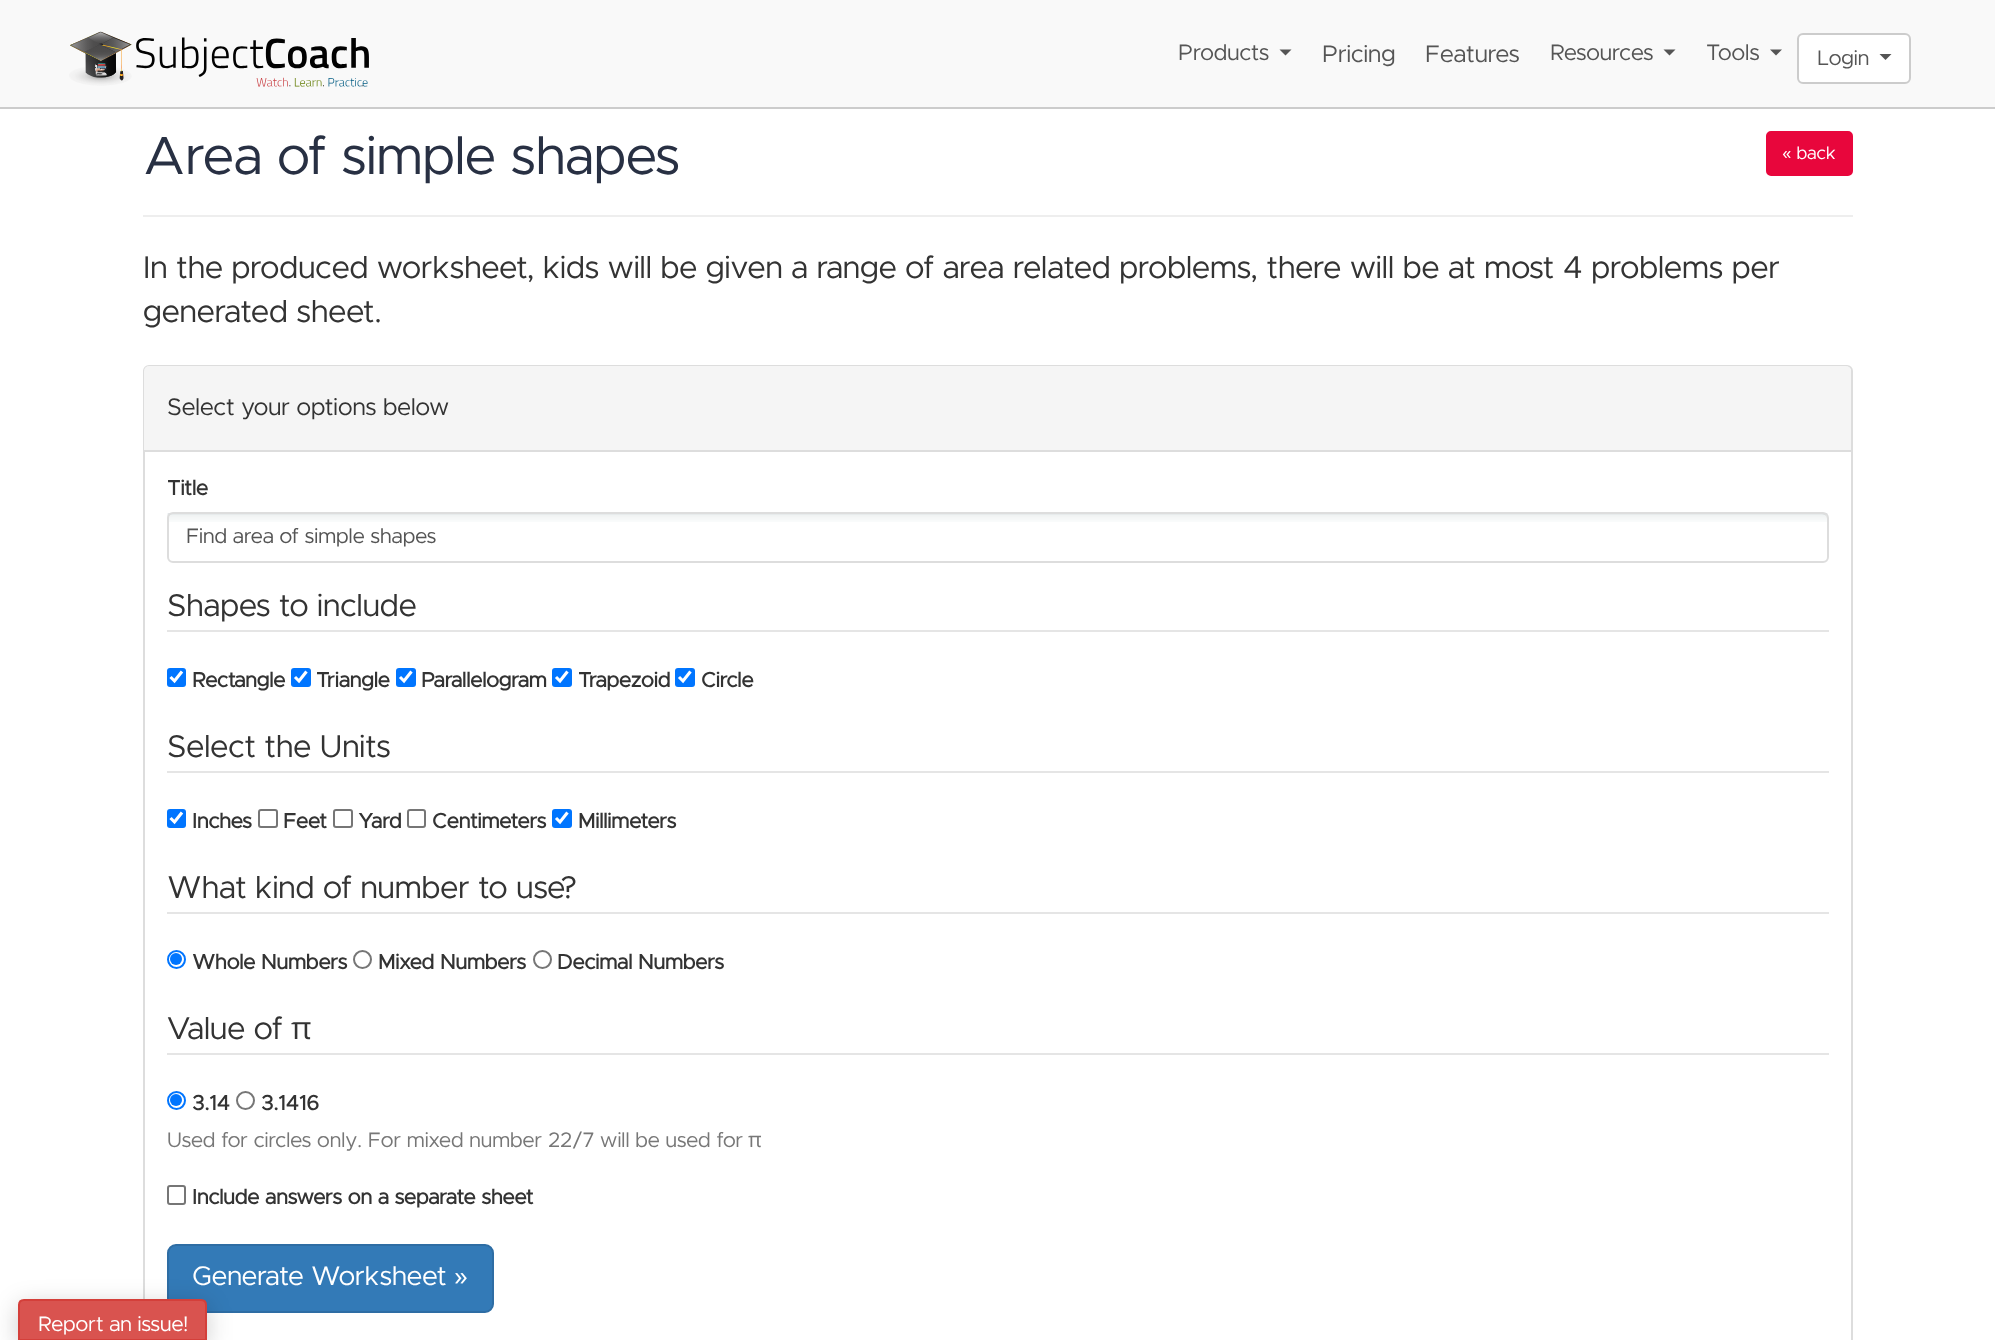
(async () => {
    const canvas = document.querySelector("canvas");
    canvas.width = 1995;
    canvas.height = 1340;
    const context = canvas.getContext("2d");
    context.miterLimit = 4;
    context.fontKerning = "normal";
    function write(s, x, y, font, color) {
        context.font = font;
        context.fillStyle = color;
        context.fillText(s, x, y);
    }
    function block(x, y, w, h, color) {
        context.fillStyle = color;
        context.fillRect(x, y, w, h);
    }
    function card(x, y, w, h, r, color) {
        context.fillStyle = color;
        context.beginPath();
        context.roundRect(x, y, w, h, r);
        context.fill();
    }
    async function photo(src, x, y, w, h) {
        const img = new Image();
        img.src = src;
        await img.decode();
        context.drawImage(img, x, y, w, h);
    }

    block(0, 0, 1995, 1340, "rgb(255, 255, 255)");
    block(0, 0, 1995, 107, "rgb(249, 249, 249)");
    block(0, 107, 1995, 2, "rgb(204, 204, 204)");
    await photo("media/1.png", 69, 31, 300, 56);
    write("Products", 1178, 60, "22.5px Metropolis", "rgb(85, 85, 85)");
    context.beginPath();
    context.moveTo(1279.5, 49.5);
    context.lineTo(1291.5, 49.5);
    context.lineTo(1285.5, 55.5);
    context.closePath();
    context.fill();
    write("Pricing", 1322, 62, "24px Metropolis", "rgb(85, 85, 85)");
    write("Features", 1425, 62, "24px Metropolis", "rgb(85, 85, 85)");
    write("Resources", 1550, 60, "22.5px Metropolis", "rgb(85, 85, 85)");
    context.beginPath();
    context.moveTo(1663.5, 49.5);
    context.lineTo(1675.5, 49.5);
    context.lineTo(1669.5, 55.5);
    context.closePath();
    context.fill();
    write("Tools", 1706, 60, "22.5px Metropolis", "rgb(85, 85, 85)");
    context.beginPath();
    context.moveTo(1770, 49.5);
    context.lineTo(1782, 49.5);
    context.lineTo(1776, 55.5);
    context.closePath();
    context.fill();
    context.fillStyle = "rgb(255, 255, 255)";
    context.beginPath();
    context.roundRect(1798, 34, 112, 49, 5);
    context.fill();
    context.strokeStyle = "rgb(204, 204, 204)";
    context.lineWidth = 2;
    context.stroke();
    write("Login", 1817, 65, "21px Metropolis", "rgb(85, 85, 85)");
    context.beginPath();
    context.moveTo(1879.5, 54);
    context.lineTo(1891.5, 54);
    context.lineTo(1885.5, 60);
    context.closePath();
    context.fill();
    write("Area of simple shapes", 143, 174, "54px Metropolis", "rgb(40, 48, 67)");
    context.fillStyle = "rgb(232, 6, 60)";
    context.beginPath();
    context.roundRect(1767, 132, 85, 43, 4);
    context.fill();
    context.strokeStyle = "rgb(232, 6, 60)";
    context.stroke();
    write("« back", 1782, 159, "18px Metropolis", "rgb(255, 255, 255)");
    block(143, 215, 1710, 2, "rgb(238, 238, 238)");
    write("In the produced worksheet, kids will be given a range of area related problems, there will be at most 4 problems per", 143, 278, "31.5px Metropolis", "rgb(51, 51, 51)");
    write("generated sheet.", 143, 322, "31.5px Metropolis", "rgb(51, 51, 51)");
    context.beginPath();
    context.roundRect(144, 366, 1708, 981, 5);
    context.strokeStyle = "rgb(221, 221, 221)";
    context.stroke();
    context.fillStyle = "rgb(245, 245, 245)";
    context.beginPath();
    context.roundRect(144, 366, 1707, 86, [5, 5, 0, 0]);
    context.fill();
    block(144, 450, 1707, 2, "rgb(221, 221, 221)");
    write("Select your options below", 167, 415, "24px Metropolis", "rgb(51, 51, 51)");
    write("Title", 167, 495, "bold 21px Metropolis", "rgb(51, 51, 51)");
    await photo("media/2.png", 167, 513, 1661, 9);
    context.fillStyle = "rgba(0, 0, 0, 0.07)";
    context.beginPath();
    context.moveTo(172, 514);
    context.lineTo(1822, 514);
    context.bezierCurveTo(1825, 514, 1827, 517, 1827, 519);
    context.lineTo(1827, 518);
    context.bezierCurveTo(1827, 515, 1825, 513, 1822, 513);
    context.lineTo(173, 513);
    context.bezierCurveTo(170, 513, 168, 515, 168, 518);
    context.lineTo(168, 519);
    context.bezierCurveTo(168, 517, 170, 514, 172, 514);
    context.closePath();
    context.fill();
    context.beginPath();
    context.roundRect(168, 513, 1660, 49, 5);
    context.stroke();
    write("Find area of simple shapes", 186, 543, "21px Metropolis", "rgb(85, 85, 85)");
    block(167, 630, 1662, 2, "rgb(229, 229, 229)");
    write("Shapes to include", 167, 616, "31.5px Metropolis", "rgb(51, 51, 51)");
    card(167, 668, 19, 19, 3, "rgb(0, 117, 255)");
    context.beginPath();
    context.moveTo(170.5, 677);
    context.lineTo(174.5, 681);
    context.lineTo(182, 671.5);
    context.strokeStyle = "rgb(255, 255, 255)";
    context.lineWidth = 3.1;
    context.stroke();
    write("Rectangle", 192, 687, "bold 21px Metropolis", "rgb(51, 51, 51)");
    card(291, 668, 20, 19, 3, "rgb(0, 117, 255)");
    context.beginPath();
    context.moveTo(295, 677);
    context.lineTo(299, 681);
    context.lineTo(306.5, 671.5);
    context.stroke();
    write("Triangle", 316, 687, "bold 21px Metropolis", "rgb(51, 51, 51)");
    card(396, 668, 20, 19, 3, "rgb(0, 117, 255)");
    context.beginPath();
    context.moveTo(400, 677);
    context.lineTo(404, 681);
    context.lineTo(411.5, 671.5);
    context.stroke();
    write("Parallelogram", 421, 687, "bold 21px Metropolis", "rgb(51, 51, 51)");
    card(552, 668, 20, 19, 3, "rgb(0, 117, 255)");
    context.beginPath();
    context.moveTo(556, 677);
    context.lineTo(560, 681);
    context.lineTo(567.5, 671.5);
    context.stroke();
    write("Trapezoid", 578, 687, "bold 21px Metropolis", "rgb(51, 51, 51)");
    card(675, 668, 20, 19, 3, "rgb(0, 117, 255)");
    context.beginPath();
    context.moveTo(679, 677);
    context.lineTo(683, 681);
    context.lineTo(690.5, 671.5);
    context.stroke();
    write("Circle", 701, 687, "bold 21px Metropolis", "rgb(51, 51, 51)");
    block(167, 771, 1662, 2, "rgb(229, 229, 229)");
    write("Select the Units", 167, 757, "31.5px Metropolis", "rgb(51, 51, 51)");
    card(167, 809, 19, 19, 3, "rgb(0, 117, 255)");
    context.beginPath();
    context.moveTo(170.5, 818);
    context.lineTo(174.5, 822);
    context.lineTo(182, 812.5);
    context.stroke();
    write("Inches", 192, 828, "bold 21px Metropolis", "rgb(51, 51, 51)");
    context.beginPath();
    context.roundRect(259, 810, 18, 17, 2);
    context.strokeStyle = "rgb(118, 118, 118)";
    context.lineWidth = 2;
    context.stroke();
    write("Feet", 283, 828, "bold 21px Metropolis", "rgb(51, 51, 51)");
    context.beginPath();
    context.roundRect(334, 810, 18, 17, 2);
    context.stroke();
    write("Yard", 358, 828, "bold 21px Metropolis", "rgb(51, 51, 51)");
    context.beginPath();
    context.roundRect(408, 810, 17, 17, 2);
    context.stroke();
    write("Centimeters", 432, 828, "bold 21px Metropolis", "rgb(51, 51, 51)");
    card(552, 809, 20, 19, 3, "rgb(0, 117, 255)");
    context.beginPath();
    context.moveTo(556, 818);
    context.lineTo(560, 822);
    context.lineTo(567.5, 812.5);
    context.strokeStyle = "rgb(255, 255, 255)";
    context.lineWidth = 3.1;
    context.stroke();
    write("Millimeters", 578, 828, "bold 21px Metropolis", "rgb(51, 51, 51)");
    block(167, 912, 1662, 2, "rgb(229, 229, 229)");
    write("What kind of number to use?", 167, 898, "31.5px Metropolis", "rgb(51, 51, 51)");
    context.beginPath();
    context.arc(176.5, 959.5, 8.5, 0, Math.PI * 2);
    context.strokeStyle = "rgb(0, 117, 255)";
    context.lineWidth = 2;
    context.stroke();
    context.fillStyle = "rgb(0, 117, 255)";
    context.beginPath();
    context.arc(176, 959, 6, 0, Math.PI * 2);
    context.fill();
    write("Whole Numbers", 192, 969, "bold 21px Metropolis", "rgb(51, 51, 51)");
    context.beginPath();
    context.arc(362.5, 959.5, 8.5, 0, Math.PI * 2);
    context.strokeStyle = "rgb(118, 118, 118)";
    context.stroke();
    write("Mixed Numbers", 378, 969, "bold 21px Metropolis", "rgb(51, 51, 51)");
    context.beginPath();
    context.arc(542.5, 959.5, 8.5, 0, Math.PI * 2);
    context.stroke();
    write("Decimal Numbers", 557, 969, "bold 21px Metropolis", "rgb(51, 51, 51)");
    block(167, 1053, 1662, 2, "rgb(229, 229, 229)");
    write("Value of", 167, 1039, "31.5px Metropolis", "rgb(51, 51, 51)");
    write("π", 291, 1039, "31.5px Open Sans", "rgb(51, 51, 51)");
    context.beginPath();
    context.arc(176.5, 1100.5, 8.5, 0, Math.PI * 2);
    context.strokeStyle = "rgb(0, 117, 255)";
    context.stroke();
    context.fillStyle = "rgb(0, 117, 255)";
    context.beginPath();
    context.arc(176, 1100, 6, 0, Math.PI * 2);
    context.fill();
    write("3.14", 192, 1110, "bold 21px Metropolis", "rgb(51, 51, 51)");
    context.beginPath();
    context.arc(245.5, 1100.5, 8.5, 0, Math.PI * 2);
    context.strokeStyle = "rgb(118, 118, 118)";
    context.stroke();
    write("3.1416", 261, 1110, "bold 21px Metropolis", "rgb(51, 51, 51)");
    write("Used for circles only. For mixed number 22/7 will be used for", 167, 1147, "21px Metropolis", "rgb(119, 119, 119)");
    write("π", 748, 1147, "21px Open Sans", "rgb(119, 119, 119)");
    context.beginPath();
    context.roundRect(168, 1186, 17, 18, 2);
    context.stroke();
    write("Include answers on a separate sheet", 192, 1204, "bold 21px Metropolis", "rgb(51, 51, 51)");
    context.fillStyle = "rgb(51, 122, 183)";
    context.beginPath();
    context.roundRect(168, 1245, 325, 67, 8);
    context.fill();
    context.strokeStyle = "rgb(46, 109, 164)";
    context.stroke();
    write("Generate Worksheet »", 192, 1285, "27px Metropolis", "rgb(255, 255, 255)");
    context.fillStyle = "rgba(0, 0, 0, 0.2)";
    context.filter = "blur(12px)";
    context.beginPath();
    context.roundRect(18, 1305, 189, 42, 6);
    context.fill();
    context.filter = "none";
    context.fillStyle = "rgb(217, 83, 79)";
    context.beginPath();
    context.moveTo(24, 1300);
    context.lineTo(201, 1300);
    context.bezierCurveTo(204, 1300, 206, 1302, 206, 1305);
    context.lineTo(206, 1340);
    context.lineTo(19, 1340);
    context.lineTo(19, 1305);
    context.bezierCurveTo(19, 1302, 21, 1300, 24, 1300);
    context.closePath();
    context.fill();
    context.strokeStyle = "rgb(212, 63, 58)";
    context.stroke();
    write("Report an issue!", 38, 1331, "21px Metropolis", "rgb(255, 255, 255)");
})();
